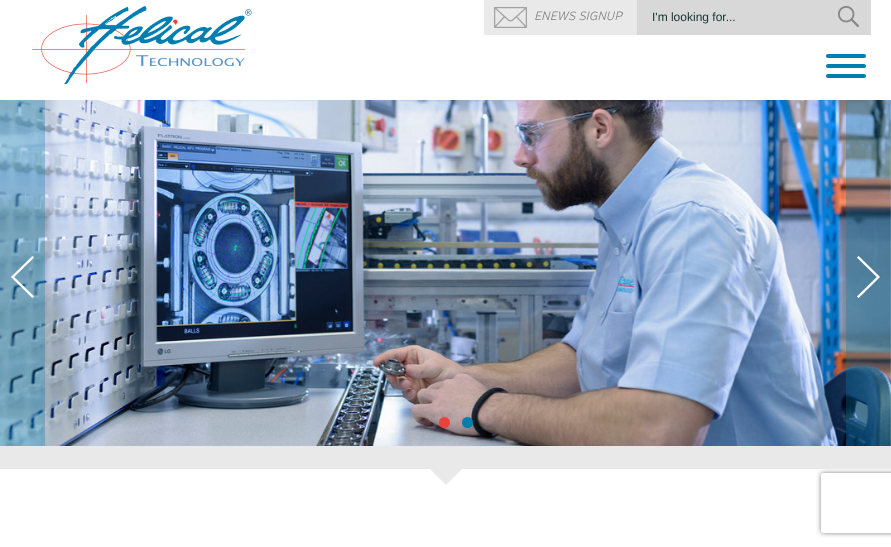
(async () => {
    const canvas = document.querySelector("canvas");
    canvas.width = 891;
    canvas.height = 547;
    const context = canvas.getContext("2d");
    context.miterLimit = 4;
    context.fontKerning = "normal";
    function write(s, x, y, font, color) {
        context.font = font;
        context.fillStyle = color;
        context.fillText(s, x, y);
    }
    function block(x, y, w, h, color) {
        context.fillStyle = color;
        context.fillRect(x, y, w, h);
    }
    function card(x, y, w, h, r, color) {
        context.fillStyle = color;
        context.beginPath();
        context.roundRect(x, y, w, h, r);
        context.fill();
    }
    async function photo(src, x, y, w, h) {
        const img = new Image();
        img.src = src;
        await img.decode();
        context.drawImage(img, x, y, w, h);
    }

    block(0, 0, 891, 547, "rgb(255, 255, 255)");
    await photo("media/1.png", 32, 6, 220, 78);
    card(826, 64, 40, 4, 2, "rgb(0, 126, 175)");
    card(826, 54, 40, 4, 2, "rgb(0, 126, 175)");
    card(826, 74, 40, 4, 2, "rgb(0, 126, 175)");
    block(484, 0, 153, 35, "rgb(233, 233, 233)");
    await photo("media/2.png", 494, 7, 33, 21);
    write("ENEWS SIGNUP", 534, 20, "italic 12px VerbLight", "rgb(128, 128, 128)");
    block(637, 0, 234, 35, "rgb(216, 216, 216)");
    write("I'm looking for...", 652, 21, "12px Liberation Sans", "rgb(18, 51, 43)");
    await photo("media/3.png", 838, 6, 21, 21);
    context.save();
    context.beginPath();
    context.moveTo(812, 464);
    context.lineTo(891, 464);
    context.lineTo(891, 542);
    context.lineTo(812, 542);
    context.closePath();
    context.moveTo(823, 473);
    context.lineTo(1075, 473);
    context.bezierCurveTo(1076, 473, 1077, 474, 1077, 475);
    context.lineTo(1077, 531);
    context.bezierCurveTo(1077, 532, 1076, 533, 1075, 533);
    context.lineTo(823, 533);
    context.bezierCurveTo(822, 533, 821, 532, 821, 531);
    context.lineTo(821, 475);
    context.bezierCurveTo(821, 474, 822, 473, 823, 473);
    context.closePath();
    context.clip("evenodd");
    context.fillStyle = "rgb(128, 128, 128)";
    context.filter = "blur(2.5px)";
    context.beginPath();
    context.roundRect(821, 473, 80, 60, 2);
    context.fill();
    context.filter = "none";
    context.restore();
    block(0, 446, 891, 23, "rgb(233, 233, 233)");
    await photo("media/4.png", 0, 100, 891, 346);
    block(0, 100, 45, 346, "rgba(0, 126, 175, 0.3)");
    await photo("media/5.png", 11, 256, 23, 42);
    block(846, 100, 45, 346, "rgba(0, 126, 175, 0.3)");
    await photo("media/6.png", 857, 256, 23, 42);
    context.fillStyle = "rgb(237, 65, 60)";
    context.beginPath();
    context.arc(444.5, 422.5, 5.5, 0, Math.PI * 2);
    context.fill();
    context.fillStyle = "rgb(0, 126, 175)";
    context.beginPath();
    context.arc(467.5, 422.5, 5.5, 0, Math.PI * 2);
    context.fill();
    context.fillStyle = "rgb(233, 233, 233)";
    context.beginPath();
    context.moveTo(429, 468);
    context.lineTo(463, 468);
    context.lineTo(446, 485);
    context.closePath();
    context.fill("evenodd");
})();
